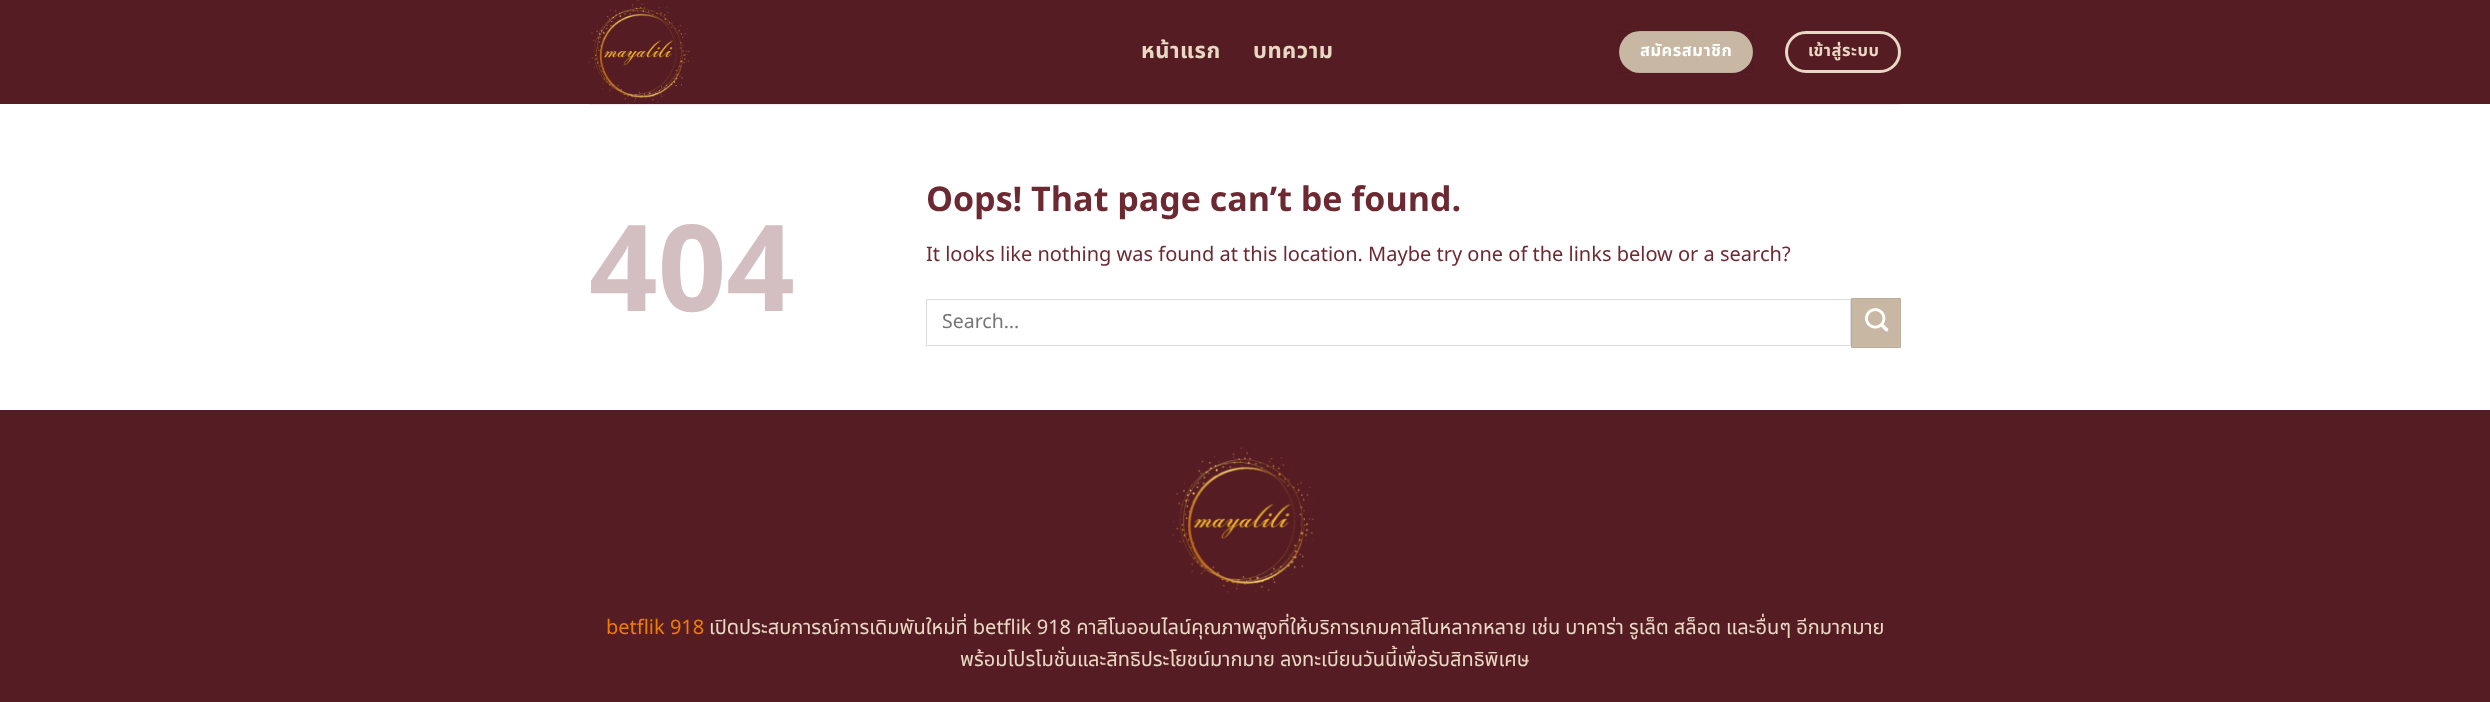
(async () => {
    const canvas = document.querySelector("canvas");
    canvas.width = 2490;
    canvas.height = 702;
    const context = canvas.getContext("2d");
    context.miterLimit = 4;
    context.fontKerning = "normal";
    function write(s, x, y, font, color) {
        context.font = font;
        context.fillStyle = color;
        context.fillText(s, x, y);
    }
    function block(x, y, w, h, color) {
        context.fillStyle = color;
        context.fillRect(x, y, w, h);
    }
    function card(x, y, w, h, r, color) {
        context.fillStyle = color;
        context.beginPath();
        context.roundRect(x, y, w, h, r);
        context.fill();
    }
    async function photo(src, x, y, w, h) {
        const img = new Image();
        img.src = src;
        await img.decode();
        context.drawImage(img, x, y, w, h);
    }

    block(0, 0, 2490, 702, "rgb(255, 255, 255)");
    block(0, 0, 2490, 104, "rgb(86, 28, 36)");
    await photo("media/1.png", 588, 0, 105, 104);
    context.letterSpacing = "0.5px";
    write("หน้าแรก", 1141, 58, "bold 22px Noto Sans Thai", "rgb(232, 216, 196)");
    write("บทความ", 1253, 58, "bold 22px Noto Sans Thai", "rgb(232, 216, 196)");
    card(1619, 31, 134, 42, 21, "rgb(199, 183, 163)");
    context.strokeStyle = "rgba(0, 0, 0, 0.05)";
    context.strokeRect(1619.5, 31.5, 133, 41);
    write("สมัครสมาชิก", 1640, 56, "bold 16.5px Noto Sans Thai", "rgb(255, 255, 255)");
    context.beginPath();
    context.roundRect(1786.5, 32.5, 113, 39, 19.5);
    context.strokeStyle = "rgb(232, 216, 196)";
    context.lineWidth = 3;
    context.stroke();
    write("เข้าสู่ระบบ", 1808, 56, "bold 16.5px Noto Sans Thai", "rgb(232, 216, 196)");
    block(589, 104, 1312, 1, "rgb(240, 234, 235)");
    context.letterSpacing = "0px";
    write("404", 589, 311, "bold 120px Noto Sans Thai", "rgb(211, 191, 194)");
    write("Oops! That page can’t be found.", 926, 211, "bold 34px Noto Sans Thai", "rgb(109, 41, 50)");
    write("It looks like nothing was found at this location. Maybe try one of the links below or a search?", 926, 261, "20px Noto Sans Thai", "rgb(109, 41, 50)");
    context.strokeStyle = "rgb(221, 221, 221)";
    context.lineWidth = 1;
    context.strokeRect(926.5, 299.5, 924, 46);
    write("Search…", 942, 328, "19.5px Noto Sans Thai", "rgb(117, 117, 117)");
    context.fillStyle = "rgb(199, 183, 163)";
    context.beginPath();
    context.rect(1851.5, 298.5, 49, 49);
    context.fill();
    context.strokeStyle = "rgb(189, 174, 155)";
    context.stroke();
    await photo("media/2.png", 1865, 308, 24, 24);
    block(0, 410, 2490, 292, "rgb(86, 28, 36)");
    await photo("media/3.png", 1172, 447, 145, 146);
    write("betflik 918", 606, 634, "20px Noto Sans Thai", "rgb(236, 127, 3)");
    write("เปิดประสบการณ์การเดิมพันใหม่ที่ betflik 918 คาสิโนออนไลน์คุณภาพสูงที่ให้บริการเกมคาสิโนหลากหลาย เช่น บาคาร่า รูเล็ต สล็อต และอื่นๆ อีกมากมาย", 709, 634, "20px Noto Sans Thai", "rgb(232, 216, 196)");
    write("พร้อมโปรโมชั่นและสิทธิประโยชน์มากมาย ลงทะเบียนวันนี้เพื่อรับสิทธิพิเศษ", 960, 666, "20px Noto Sans Thai", "rgb(232, 216, 196)");
})();
